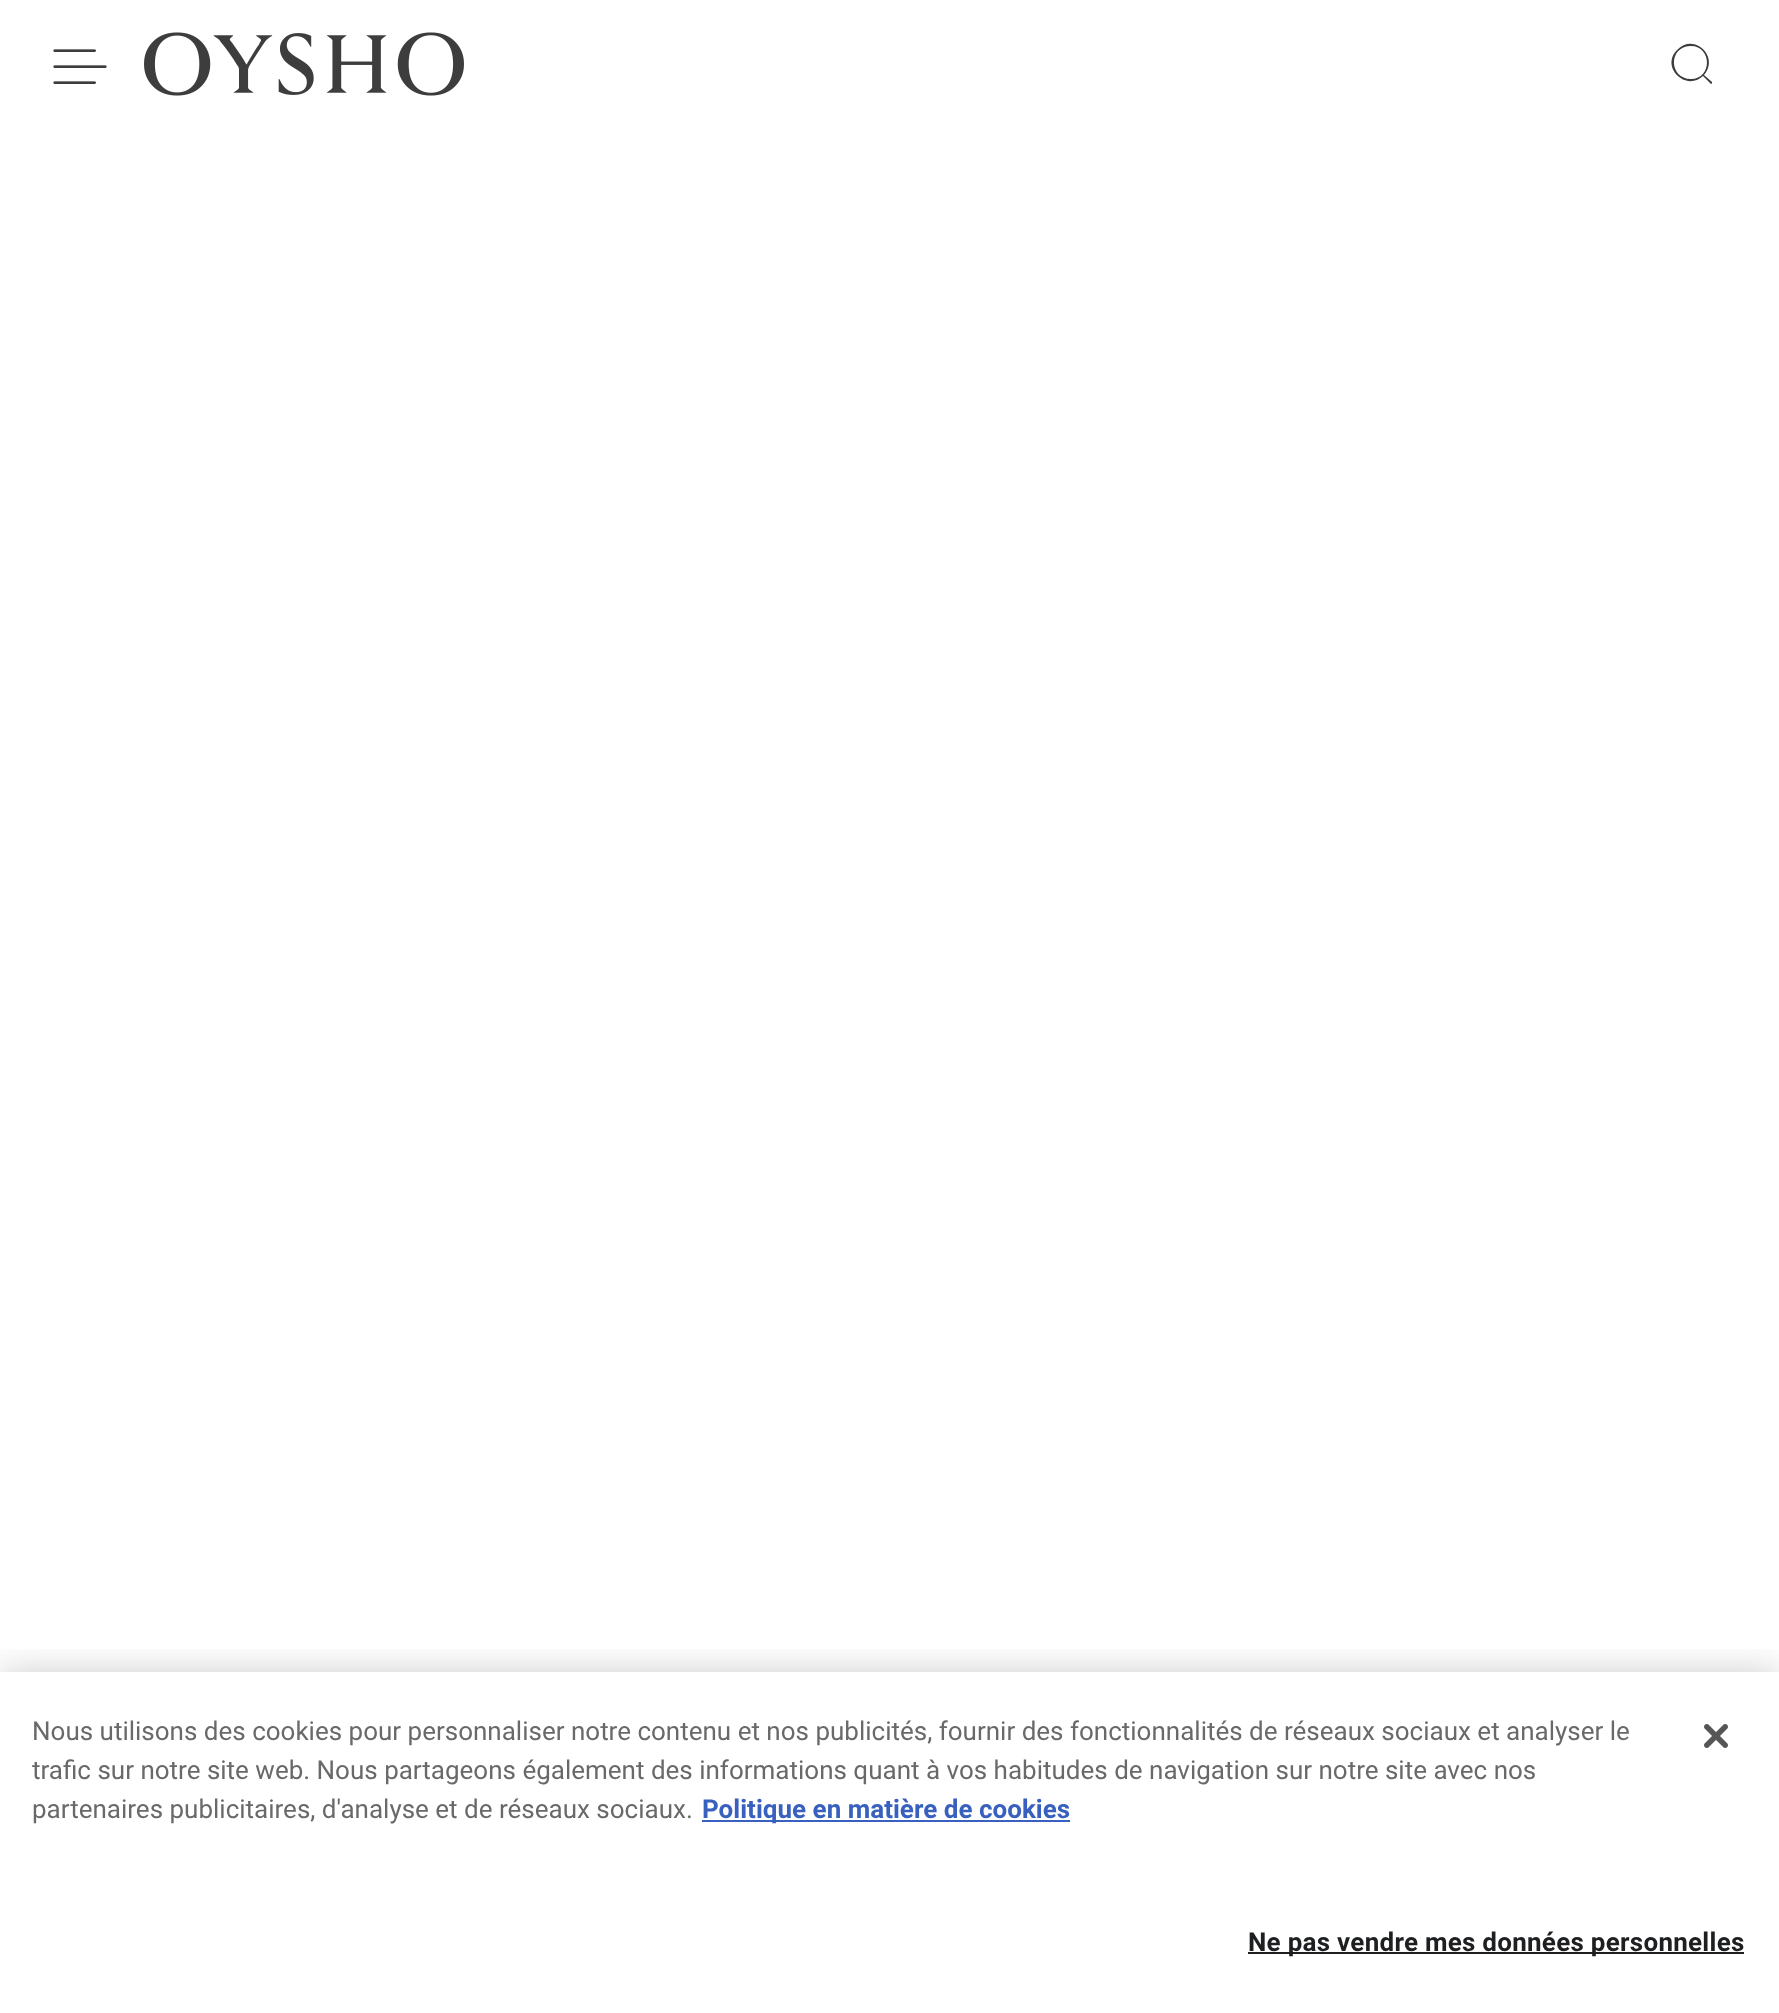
(async () => {
    const canvas = document.querySelector("canvas");
    canvas.width = 1779;
    canvas.height = 2013;
    const context = canvas.getContext("2d");
    context.miterLimit = 4;
    context.fontKerning = "normal";
    function write(s, x, y, font, color) {
        context.font = font;
        context.fillStyle = color;
        context.fillText(s, x, y);
    }
    function block(x, y, w, h, color) {
        context.fillStyle = color;
        context.fillRect(x, y, w, h);
    }
    async function photo(src, x, y, w, h) {
        const img = new Image();
        img.src = src;
        await img.decode();
        context.drawImage(img, x, y, w, h);
    }

    block(0, 0, 1779, 2013, "rgb(255, 255, 255)");
    await photo("media/1.png", 53, 49, 54, 35);
    await photo("media/2.png", 144, 32, 320, 64);
    context.fillStyle = "rgb(61, 61, 61)";
    context.beginPath();
    context.moveTo(1691, 79);
    context.bezierCurveTo(1669, 79, 1668, 47, 1690, 46);
    context.bezierCurveTo(1712, 45, 1713, 79, 1691, 79);
    context.closePath();
    context.moveTo(1712, 82);
    context.lineTo(1704, 75);
    context.bezierCurveTo(1720, 57, 1694, 32, 1677, 50);
    context.bezierCurveTo(1660, 67, 1686, 92, 1703, 76);
    context.lineTo(1711, 84);
    context.bezierCurveTo(1712, 84, 1712, 83, 1712, 82);
    context.closePath();
    context.fill();
    context.save();
    context.beginPath();
    context.rect(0, 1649, 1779, 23);
    context.clip();
    context.fillStyle = "rgba(0, 0, 0, 0.2)";
    context.filter = "blur(18px)";
    context.beginPath();
    context.rect(0, 1672, 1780, 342);
    context.fill();
    context.filter = "none";
    context.restore();
    write("Nous utilisons des cookies pour personnaliser notre contenu et nos publicités, fournir des fonctionnalités de réseaux sociaux et analyser le", 32, 1740, "26.02px Roboto", "rgb(105, 105, 105)");
    write("trafic sur notre site web. Nous partageons également des informations quant à vos habitudes de navigation sur notre site avec nos", 32, 1779, "26.02px Roboto", "rgb(105, 105, 105)");
    write("partenaires publicitaires, d'analyse et de réseaux sociaux.", 32, 1818, "26.02px Roboto", "rgb(105, 105, 105)");
    block(702, 1820, 368, 2, "rgb(56, 96, 190)");
    write("Politique en matière de cookies", 702, 1818, "bold 26.02px Roboto", "rgb(56, 96, 190)");
    block(1248, 1952, 496, 2, "rgb(30, 31, 33)");
    context.letterSpacing = "0.25px";
    write("Ne pas vendre mes données personnelles", 1248, 1951, "bold 26.02px Roboto", "rgb(30, 31, 33)");
    await photo("media/3.png", 1704, 1724, 24, 24);
})();
